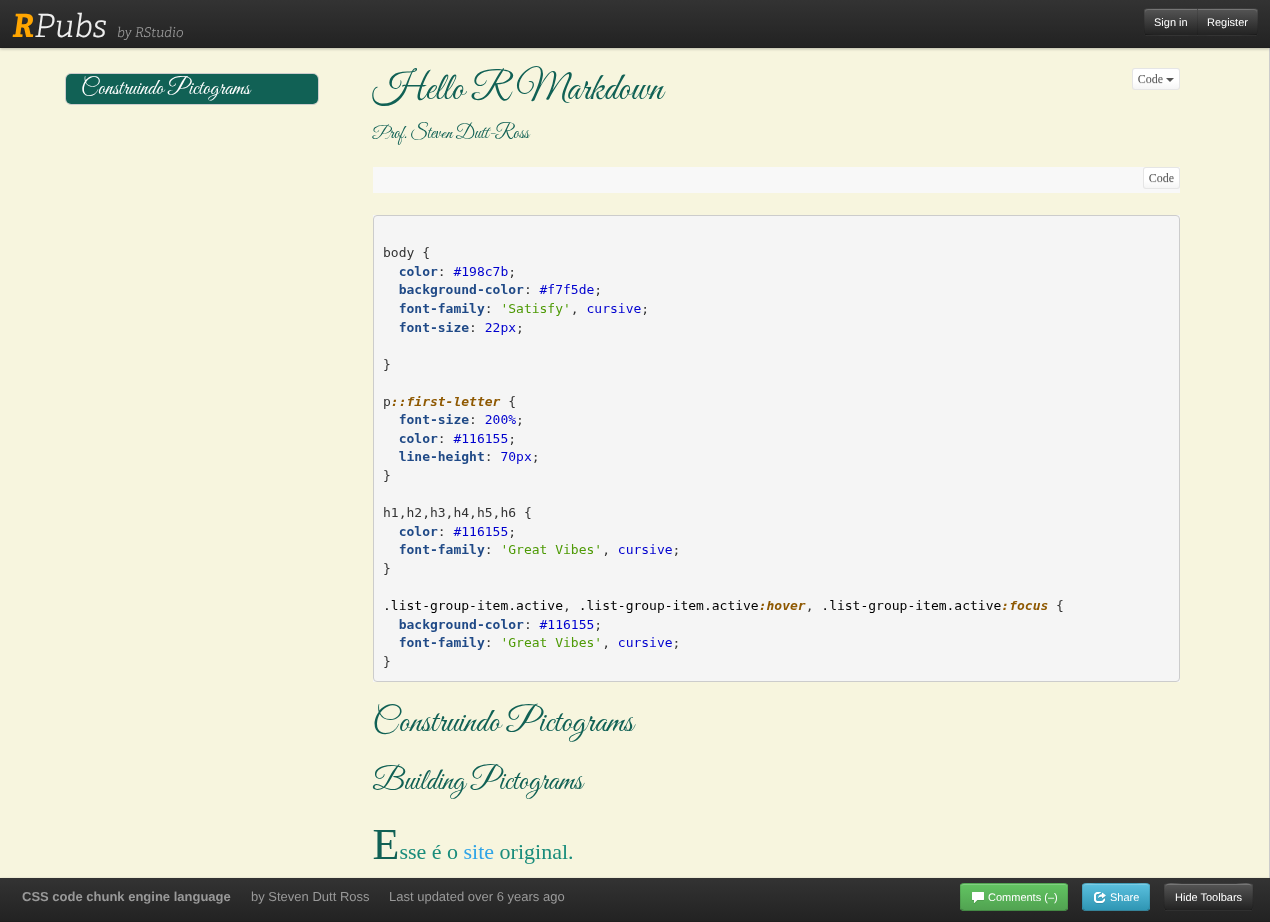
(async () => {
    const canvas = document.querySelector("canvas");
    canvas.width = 1270;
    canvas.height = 922;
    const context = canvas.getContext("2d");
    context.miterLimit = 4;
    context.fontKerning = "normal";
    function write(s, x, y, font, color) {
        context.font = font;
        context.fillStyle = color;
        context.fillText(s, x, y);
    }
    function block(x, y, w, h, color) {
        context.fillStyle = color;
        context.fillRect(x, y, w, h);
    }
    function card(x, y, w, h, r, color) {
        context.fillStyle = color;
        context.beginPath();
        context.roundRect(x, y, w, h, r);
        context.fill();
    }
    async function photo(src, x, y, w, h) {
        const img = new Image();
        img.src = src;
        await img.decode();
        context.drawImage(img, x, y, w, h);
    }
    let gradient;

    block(0, 0, 1270, 922, "rgb(255, 255, 255)");
    await photo("media/1.png", 0, 48, 1269, 830);
    block(1269, 48, 1, 834, "rgb(204, 204, 204)");
    context.fillStyle = "rgba(0, 0, 0, 0.25)";
    context.filter = "blur(1.5px)";
    context.beginPath();
    context.rect(0, 1, 1270, 48);
    context.fill();
    context.filter = "none";
    gradient = context.createLinearGradient(635, 0, 635, 48);
    gradient.addColorStop(0, "rgb(51, 51, 51)");
    gradient.addColorStop(1, "rgb(34, 34, 34)");
    context.fillStyle = gradient;
    context.fillRect(0, 0, 1270, 47);
    block(0, 47, 1270, 1, "rgb(31, 31, 31)");
    write("R", 12, 37, "italic bold 32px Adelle", "rgb(255, 165, 0)");
    write("Pubs", 34, 37, "italic 300 32px Adelle", "rgb(238, 238, 238)");
    write("by RStudio", 117, 37, "italic 300 13.5px Adelle", "rgb(153, 153, 153)");
    context.fillStyle = "rgb(65, 65, 65)";
    context.beginPath();
    context.roundRect(1144, 8, 54, 28, [4, 0, 0, 4]);
    context.fill();
    context.save();
    context.beginPath();
    context.roundRect(1144, 8, 54, 28, [4, 0, 0, 4]);
    context.clip();
    gradient = context.createLinearGradient(1171, 9, 1171, 35);
    gradient.addColorStop(0, "rgb(85, 85, 85)");
    gradient.addColorStop(1, "rgb(34, 34, 34)");
    context.fillStyle = gradient;
    context.fillRect(1144, 9, 53, 26);
    context.restore();
    context.fillStyle = "rgb(118, 118, 118)";
    context.beginPath();
    context.moveTo(1148, 10);
    context.lineTo(1197, 10);
    context.lineTo(1197, 9);
    context.lineTo(1148, 9);
    context.bezierCurveTo(1146, 9, 1145, 10, 1145, 12);
    context.lineTo(1145, 13);
    context.bezierCurveTo(1145, 11, 1146, 10, 1148, 10);
    context.closePath();
    context.fill();
    context.fillStyle = "rgba(0, 0, 0, 0.1)";
    context.beginPath();
    context.moveTo(1148, 8);
    context.lineTo(1145, 9);
    context.lineTo(1146, 10);
    context.bezierCurveTo(1148, 8, 1191, 9, 1197, 9);
    context.lineTo(1198, 8);
    context.closePath();
    context.fill();
    context.fillStyle = "rgba(0, 0, 0, 0.25)";
    context.beginPath();
    context.moveTo(1198, 36);
    context.lineTo(1197, 35);
    context.bezierCurveTo(1191, 35, 1148, 36, 1146, 34);
    context.lineTo(1145, 35);
    context.lineTo(1148, 36);
    context.closePath();
    context.fill();
    context.fillStyle = "rgba(0, 0, 0, 0.1)";
    context.beginPath();
    context.moveTo(1144, 12);
    context.lineTo(1144, 32);
    context.bezierCurveTo(1144, 33, 1144.5, 34, 1145, 35);
    context.lineTo(1146, 34);
    context.bezierCurveTo(1145, 34, 1145, 33, 1145, 32);
    context.lineTo(1145, 12);
    context.bezierCurveTo(1145, 11, 1145, 10, 1146, 10);
    context.lineTo(1145, 9);
    context.bezierCurveTo(1144.5, 10, 1144, 11, 1144, 12);
    context.closePath();
    context.fill();
    write("Sign in", 1154, 26, "11px Liberation Sans", "rgb(255, 255, 255)");
    context.fillStyle = "rgb(65, 65, 65)";
    context.beginPath();
    context.roundRect(1197, 8, 61, 28, [0, 4, 4, 0]);
    context.fill();
    context.save();
    context.beginPath();
    context.roundRect(1197, 8, 61, 28, [0, 4, 4, 0]);
    context.clip();
    gradient = context.createLinearGradient(1228, 9, 1228, 35);
    gradient.addColorStop(0, "rgb(85, 85, 85)");
    gradient.addColorStop(1, "rgb(34, 34, 34)");
    context.fillStyle = gradient;
    context.fillRect(1197, 9, 61, 26);
    context.restore();
    context.fillStyle = "rgb(118, 118, 118)";
    context.beginPath();
    context.moveTo(1198, 10);
    context.lineTo(1254, 10);
    context.bezierCurveTo(1256, 10, 1257, 11, 1257, 13);
    context.lineTo(1257, 12);
    context.bezierCurveTo(1257, 10, 1256, 9, 1254, 9);
    context.lineTo(1198, 9);
    context.closePath();
    context.fill();
    context.fillStyle = "rgba(0, 0, 0, 0.1)";
    context.beginPath();
    context.moveTo(1197, 8);
    context.lineTo(1198, 9);
    context.bezierCurveTo(1205, 9, 1254, 8, 1256, 10);
    context.lineTo(1257, 9);
    context.lineTo(1254, 8);
    context.closePath();
    context.fill();
    context.beginPath();
    context.moveTo(1258, 32);
    context.lineTo(1258, 12);
    context.bezierCurveTo(1258, 11, 1257.5, 10, 1257, 9);
    context.lineTo(1256, 10);
    context.bezierCurveTo(1257, 10, 1257, 11, 1257, 12);
    context.lineTo(1257, 32);
    context.bezierCurveTo(1257, 33, 1257, 34, 1256, 34);
    context.lineTo(1257, 35);
    context.bezierCurveTo(1257.5, 34, 1258, 33, 1258, 32);
    context.closePath();
    context.fill();
    context.fillStyle = "rgba(0, 0, 0, 0.25)";
    context.beginPath();
    context.moveTo(1254, 36);
    context.lineTo(1257, 35);
    context.lineTo(1256, 34);
    context.bezierCurveTo(1254, 36, 1205, 35, 1198, 35);
    context.lineTo(1197, 36);
    context.closePath();
    context.fill();
    context.fillStyle = "rgba(0, 0, 0, 0.1)";
    context.beginPath();
    context.moveTo(1197, 8);
    context.lineTo(1197, 36);
    context.lineTo(1198, 35);
    context.lineTo(1198, 9);
    context.closePath();
    context.fill();
    write("Register", 1207, 26, "11px Liberation Sans", "rgb(255, 255, 255)");
    context.fillStyle = "rgba(0, 0, 0, 0.25)";
    context.filter = "blur(1.5px)";
    context.beginPath();
    context.rect(0, 879, 1270, 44);
    context.fill();
    context.filter = "none";
    gradient = context.createLinearGradient(635, 878, 635, 922);
    gradient.addColorStop(0, "rgb(51, 51, 51)");
    gradient.addColorStop(1, "rgb(34, 34, 34)");
    context.fillStyle = gradient;
    context.fillRect(0, 878, 1270, 43);
    block(0, 921, 1270, 1, "rgb(31, 31, 31)");
    write("CSS code chunk engine language", 22, 901, "bold 13px Liberation Sans", "rgb(153, 153, 153)");
    write("by Steven Dutt Ross", 251, 901, "13px Liberation Sans", "rgb(153, 153, 153)");
    write("Last updated over 6 years ago", 389, 901, "13px Liberation Sans", "rgb(153, 153, 153)");
    card(960, 883, 108, 28, 4, "rgb(91, 183, 91)");
    context.save();
    context.beginPath();
    context.roundRect(960, 883, 108, 28, 4);
    context.clip();
    gradient = context.createLinearGradient(1014, 884, 1014, 910);
    gradient.addColorStop(0, "rgb(98, 196, 98)");
    gradient.addColorStop(1, "rgb(81, 163, 81)");
    context.fillStyle = gradient;
    context.fillRect(960, 884, 108, 26);
    context.restore();
    context.fillStyle = "rgb(129, 207, 129)";
    context.beginPath();
    context.moveTo(964, 885);
    context.lineTo(1065, 885);
    context.bezierCurveTo(1066, 885, 1067, 887, 1067, 888);
    context.lineTo(1067, 887);
    context.bezierCurveTo(1067, 885, 1066, 884, 1064, 884);
    context.lineTo(964, 884);
    context.bezierCurveTo(962, 884, 961, 885, 961, 887);
    context.bezierCurveTo(961, 886, 962, 885, 964, 885);
    context.closePath();
    context.moveTo(1067, 905);
    context.lineTo(1067, 908);
    context.closePath();
    context.fill("evenodd");
    context.beginPath();
    context.moveTo(1066.5, 909.5);
    context.lineTo(1064.5, 910.5);
    context.lineTo(980.5, 910.5);
    context.lineTo(964, 910.5);
    context.lineTo(961.5, 909.5);
    context.strokeStyle = "rgba(0, 0, 0, 0.25)";
    context.stroke();
    context.beginPath();
    context.moveTo(961.5, 909.5);
    context.bezierCurveTo(959.5, 907.5, 960.5, 903, 960.5, 900.5);
    context.bezierCurveTo(960.5, 879.5, 957.5, 883.5, 980.5, 883.5);
    context.lineTo(1047.5, 883.5);
    context.bezierCurveTo(1070.5, 883.5, 1067.5, 879.5, 1067.5, 900.5);
    context.bezierCurveTo(1067.5, 903, 1068.5, 907.5, 1066.5, 909.5);
    context.strokeStyle = "rgba(0, 0, 0, 0.1)";
    context.stroke();
    await photo("media/2.png", 972, 892, 12, 12);
    write("Comments (–)", 988, 901, "11px Liberation Sans", "rgb(255, 255, 255)");
    card(1082, 883, 68, 28, 4, "rgb(73, 175, 205)");
    context.save();
    context.beginPath();
    context.roundRect(1082, 883, 68, 28, 4);
    context.clip();
    gradient = context.createLinearGradient(1116, 884, 1116, 910);
    gradient.addColorStop(0, "rgb(91, 192, 222)");
    gradient.addColorStop(1, "rgb(47, 150, 180)");
    context.fillStyle = gradient;
    context.fillRect(1082, 884, 68, 26);
    context.restore();
    context.fillStyle = "rgba(255, 255, 255, 0.2)";
    context.beginPath();
    context.moveTo(1086, 885);
    context.lineTo(1146, 885);
    context.bezierCurveTo(1148, 885, 1149, 886, 1149, 888);
    context.bezierCurveTo(1149, 881, 1140, 884, 1136, 884);
    context.lineTo(1096, 884);
    context.bezierCurveTo(1092, 884, 1083, 881, 1083, 888);
    context.bezierCurveTo(1083, 886, 1084, 885, 1086, 885);
    context.closePath();
    context.fill();
    context.beginPath();
    context.moveTo(1148.5, 909.5);
    context.lineTo(1146.5, 910.5);
    context.lineTo(1085.5, 910.5);
    context.lineTo(1083.5, 909.5);
    context.strokeStyle = "rgba(0, 0, 0, 0.25)";
    context.stroke();
    context.beginPath();
    context.moveTo(1083.5, 909.5);
    context.bezierCurveTo(1081.5, 907, 1082.5, 899.5, 1082.5, 897);
    context.bezierCurveTo(1082.5, 882, 1080.5, 883.5, 1096, 883.5);
    context.lineTo(1136, 883.5);
    context.bezierCurveTo(1151.5, 883.5, 1149.5, 882, 1149.5, 897);
    context.bezierCurveTo(1149.5, 899.5, 1150.5, 907, 1148.5, 909.5);
    context.strokeStyle = "rgba(0, 0, 0, 0.1)";
    context.stroke();
    await photo("media/3.png", 1094, 892, 12, 12);
    write("Share", 1110, 901, "11px Liberation Sans", "rgb(255, 255, 255)");
    card(1164, 883, 89, 28, 4, "rgb(65, 65, 65)");
    context.save();
    context.beginPath();
    context.roundRect(1164, 883, 89, 28, 4);
    context.clip();
    gradient = context.createLinearGradient(1209, 884, 1209, 910);
    gradient.addColorStop(0, "rgb(85, 85, 85)");
    gradient.addColorStop(1, "rgb(34, 34, 34)");
    context.fillStyle = gradient;
    context.fillRect(1164, 884, 89, 26);
    context.restore();
    context.fillStyle = "rgba(255, 255, 255, 0.2)";
    context.beginPath();
    context.moveTo(1168, 885);
    context.lineTo(1249, 885);
    context.bezierCurveTo(1251, 885, 1252, 886, 1252, 888);
    context.bezierCurveTo(1252, 880, 1239, 884, 1236, 884);
    context.lineTo(1182, 884);
    context.bezierCurveTo(1178, 884, 1165, 880, 1165, 888);
    context.bezierCurveTo(1165, 886, 1166, 885, 1168, 885);
    context.closePath();
    context.fill();
    context.beginPath();
    context.moveTo(1251.5, 909.5);
    context.lineTo(1249.5, 910.5);
    context.lineTo(1167.5, 910.5);
    context.lineTo(1165.5, 909.5);
    context.strokeStyle = "rgba(0, 0, 0, 0.25)";
    context.stroke();
    context.beginPath();
    context.moveTo(1165.5, 909.5);
    context.bezierCurveTo(1163.5, 907.5, 1164.5, 903, 1164.5, 900.5);
    context.bezierCurveTo(1164.5, 881, 1161, 883.5, 1181.5, 883.5);
    context.lineTo(1235.5, 883.5);
    context.bezierCurveTo(1256, 883.5, 1252.5, 881, 1252.5, 900.5);
    context.bezierCurveTo(1252.5, 903, 1253.5, 907.5, 1251.5, 909.5);
    context.strokeStyle = "rgba(0, 0, 0, 0.1)";
    context.stroke();
    write("Hide Toolbars", 1175, 901, "11px Liberation Sans", "rgb(255, 255, 255)");
})();
